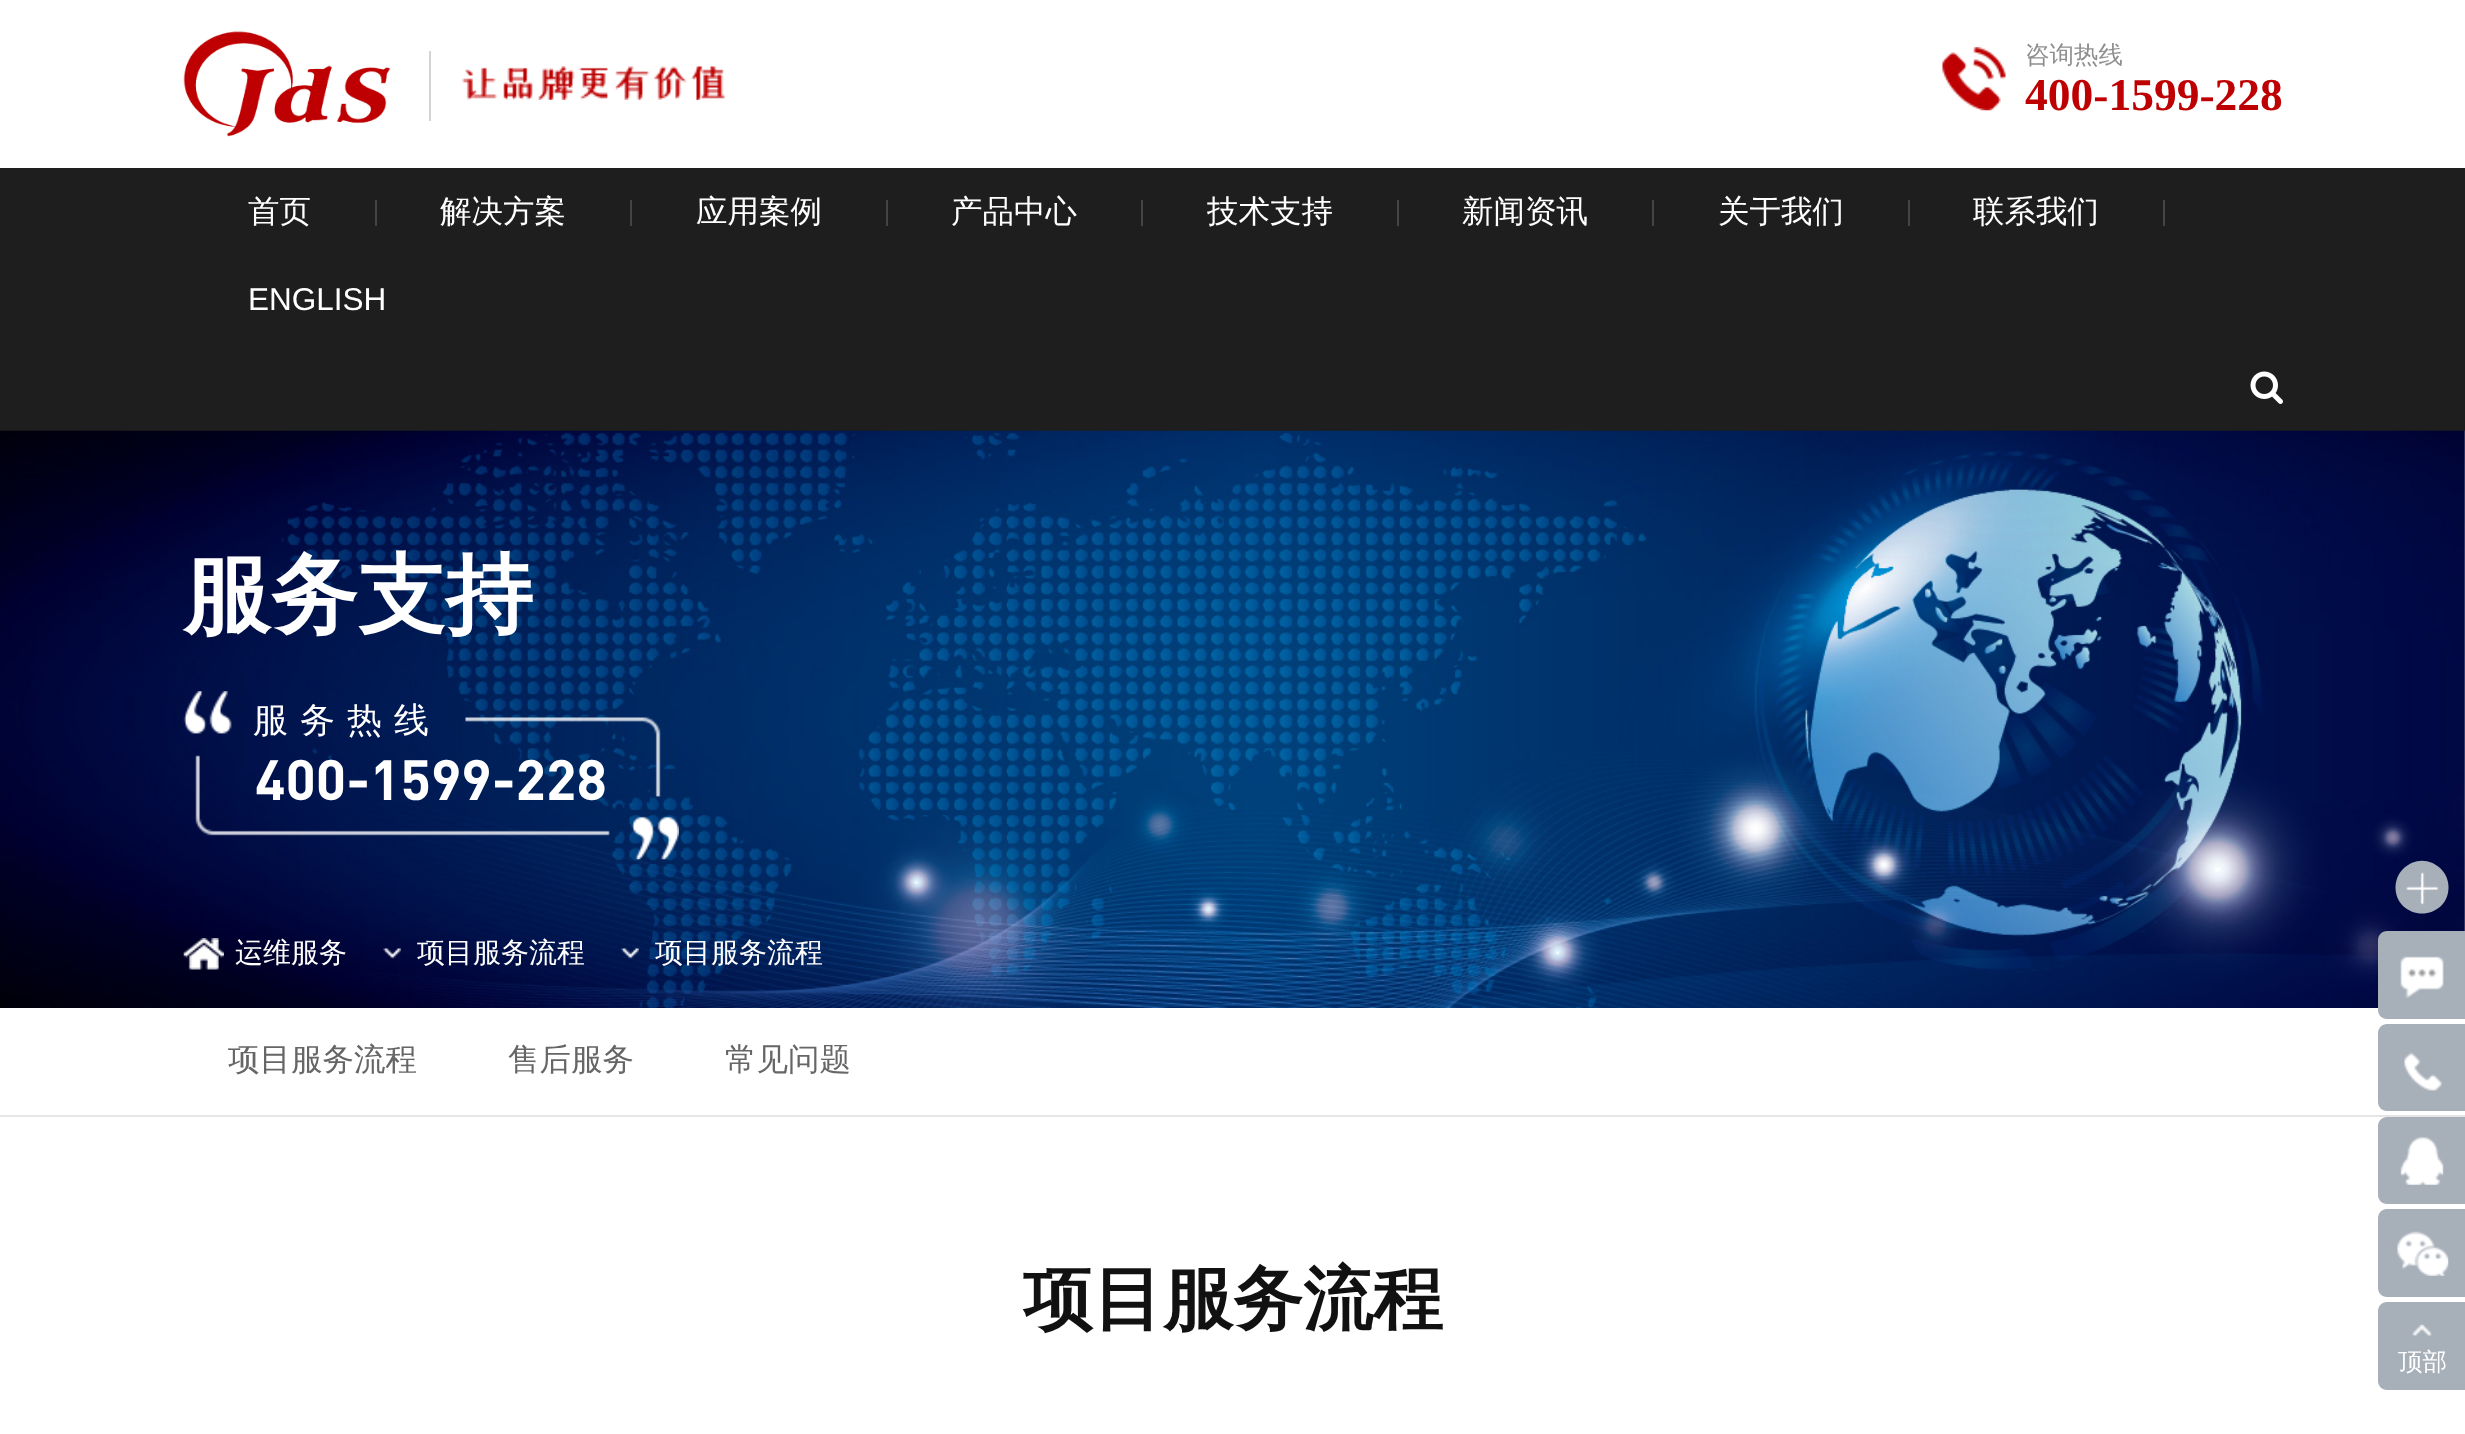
(async () => {
    const canvas = document.querySelector("canvas");
    canvas.width = 2465;
    canvas.height = 1434;
    const context = canvas.getContext("2d");
    context.miterLimit = 4;
    context.fontKerning = "normal";
    function write(s, x, y, font, color) {
        context.font = font;
        context.fillStyle = color;
        context.fillText(s, x, y);
    }
    function block(x, y, w, h, color) {
        context.fillStyle = color;
        context.fillRect(x, y, w, h);
    }
    async function photo(src, x, y, w, h) {
        const img = new Image();
        img.src = src;
        await img.decode();
        context.drawImage(img, x, y, w, h);
    }

    block(0, 0, 2465, 1434, "rgb(255, 255, 255)");
    await photo("media/1.png", 183, 31, 208, 106);
    block(429, 51, 2, 70, "rgb(212, 212, 212)");
    await photo("media/2.png", 462, 66, 263, 34);
    await photo("media/3.png", 1942, 47, 64, 64);
    write("咨询热线", 2025, 63, "500 24.5px WenQuanYi Zen Hei", "rgb(143, 143, 143)");
    write("400-1599-228", 2025, 110, "bold 45.5px Liberation Serif", "rgb(190, 0, 2)");
    block(0, 168, 2465, 263, "rgb(30, 30, 30)");
    write("首页", 248, 222, "500 31.5px WenQuanYi Zen Hei", "rgb(255, 255, 255)");
    block(375, 200, 2, 26, "rgb(68, 68, 68)");
    write("解决方案", 440, 222, "500 31.5px WenQuanYi Zen Hei", "rgb(255, 255, 255)");
    block(630, 200, 2, 26, "rgb(68, 68, 68)");
    write("应用案例", 696, 222, "500 31.5px WenQuanYi Zen Hei", "rgb(255, 255, 255)");
    block(886, 200, 2, 26, "rgb(68, 68, 68)");
    write("产品中心", 951, 222, "500 31.5px WenQuanYi Zen Hei", "rgb(255, 255, 255)");
    block(1141, 200, 2, 26, "rgb(68, 68, 68)");
    write("技术支持", 1207, 222, "500 31.5px WenQuanYi Zen Hei", "rgb(255, 255, 255)");
    block(1397, 200, 2, 26, "rgb(68, 68, 68)");
    write("新闻资讯", 1462, 222, "500 31.5px WenQuanYi Zen Hei", "rgb(255, 255, 255)");
    block(1652, 200, 2, 26, "rgb(68, 68, 68)");
    write("关于我们", 1718, 222, "500 31.5px WenQuanYi Zen Hei", "rgb(255, 255, 255)");
    block(1908, 200, 2, 26, "rgb(68, 68, 68)");
    write("联系我们", 1973, 222, "500 31.5px WenQuanYi Zen Hei", "rgb(255, 255, 255)");
    block(2163, 200, 2, 26, "rgb(68, 68, 68)");
    write("ENGLISH", 248, 310, "31.5px Liberation Sans", "rgb(255, 255, 255)");
    await photo("media/4.png", 2250, 371, 33, 33);
    await photo("media/5.png", 0, 430, 2465, 578);
    write("服务支持", 183, 625, "bold 87.5px WenQuanYi Zen Hei", "rgb(255, 255, 255)");
    context.letterSpacing = "12px";
    write("服务热线", 253, 732, "500 35px WenQuanYi Zen Hei", "rgb(255, 255, 255)");
    context.letterSpacing = "0px";
    write("400-1599-228", 255, 800, "bold 56px DIN", "rgb(255, 255, 255)");
    await photo("media/6.png", 183, 691, 496, 169);
    await photo("media/7.png", 183, 938, 41, 32);
    write("运维服务", 235, 962, "500 28px WenQuanYi Zen Hei", "rgb(255, 255, 255)");
    await photo("media/8.png", 383, 948, 18, 11);
    write("项目服务流程", 417, 962, "500 28px WenQuanYi Zen Hei", "rgb(255, 255, 255)");
    await photo("media/9.png", 621, 948, 18, 11);
    write("项目服务流程", 655, 962, "500 28px WenQuanYi Zen Hei", "rgb(255, 255, 255)");
    block(0, 1115, 2465, 2, "rgb(229, 229, 229)");
    write("项目服务流程", 228, 1070, "500 31.5px WenQuanYi Zen Hei", "rgb(102, 102, 102)");
    write("售后服务", 508, 1070, "500 31.5px WenQuanYi Zen Hei", "rgb(102, 102, 102)");
    write("常见问题", 725, 1070, "500 31.5px WenQuanYi Zen Hei", "rgb(102, 102, 102)");
    write("项目服务流程", 1023, 1323, "bold 70px WenQuanYi Zen Hei", "rgb(17, 17, 17)");
    context.fillStyle = "rgb(167, 175, 185)";
    context.beginPath();
    context.moveTo(2441, 869);
    context.bezierCurveTo(2451, 879, 2451, 896, 2441, 906);
    context.bezierCurveTo(2430, 916, 2414, 916, 2403, 906);
    context.bezierCurveTo(2393, 896, 2393, 879, 2403, 869);
    context.bezierCurveTo(2414, 858, 2430, 858, 2441, 869);
    context.closePath();
    context.fill();
    await photo("media/10.png", 2406, 872, 33, 33);
    context.beginPath();
    context.moveTo(2387, 931);
    context.lineTo(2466, 931);
    context.lineTo(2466, 1019);
    context.lineTo(2387, 1019);
    context.bezierCurveTo(2382, 1019, 2378, 1015, 2378, 1010);
    context.lineTo(2378, 940);
    context.bezierCurveTo(2378, 935, 2382, 931, 2387, 931);
    context.closePath();
    context.fill();
    await photo("media/11.png", 2400, 956, 44, 42);
    context.beginPath();
    context.moveTo(2387, 1024);
    context.lineTo(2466, 1024);
    context.lineTo(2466, 1111);
    context.lineTo(2387, 1111);
    context.bezierCurveTo(2382, 1111, 2378, 1107, 2378, 1102);
    context.lineTo(2378, 1033);
    context.bezierCurveTo(2378, 1028, 2382, 1024, 2387, 1024);
    context.closePath();
    context.fill();
    await photo("media/12.png", 2404, 1052, 39, 39);
    context.beginPath();
    context.moveTo(2387, 1117);
    context.lineTo(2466, 1117);
    context.lineTo(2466, 1204);
    context.lineTo(2387, 1204);
    context.bezierCurveTo(2382, 1204, 2378, 1200, 2378, 1195);
    context.lineTo(2378, 1126);
    context.bezierCurveTo(2378, 1121, 2382, 1117, 2387, 1117);
    context.closePath();
    context.fill();
    await photo("media/13.png", 2400, 1136, 44, 49);
    context.beginPath();
    context.moveTo(2387, 1209);
    context.lineTo(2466, 1209);
    context.lineTo(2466, 1297);
    context.lineTo(2387, 1297);
    context.bezierCurveTo(2382, 1297, 2378, 1293, 2378, 1288);
    context.lineTo(2378, 1218);
    context.bezierCurveTo(2378, 1213, 2382, 1209, 2387, 1209);
    context.closePath();
    context.fill();
    await photo("media/14.png", 2397, 1231, 52, 45);
    context.beginPath();
    context.moveTo(2387, 1302);
    context.lineTo(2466, 1302);
    context.lineTo(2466, 1390);
    context.lineTo(2387, 1390);
    context.bezierCurveTo(2382, 1390, 2378, 1386, 2378, 1381);
    context.lineTo(2378, 1311);
    context.bezierCurveTo(2378, 1306, 2382, 1302, 2387, 1302);
    context.closePath();
    context.fill();
    await photo("media/15.png", 2412, 1324, 20, 12);
    write("顶部", 2398, 1370, "500 24.5px WenQuanYi Zen Hei", "rgb(255, 255, 255)");
})();
